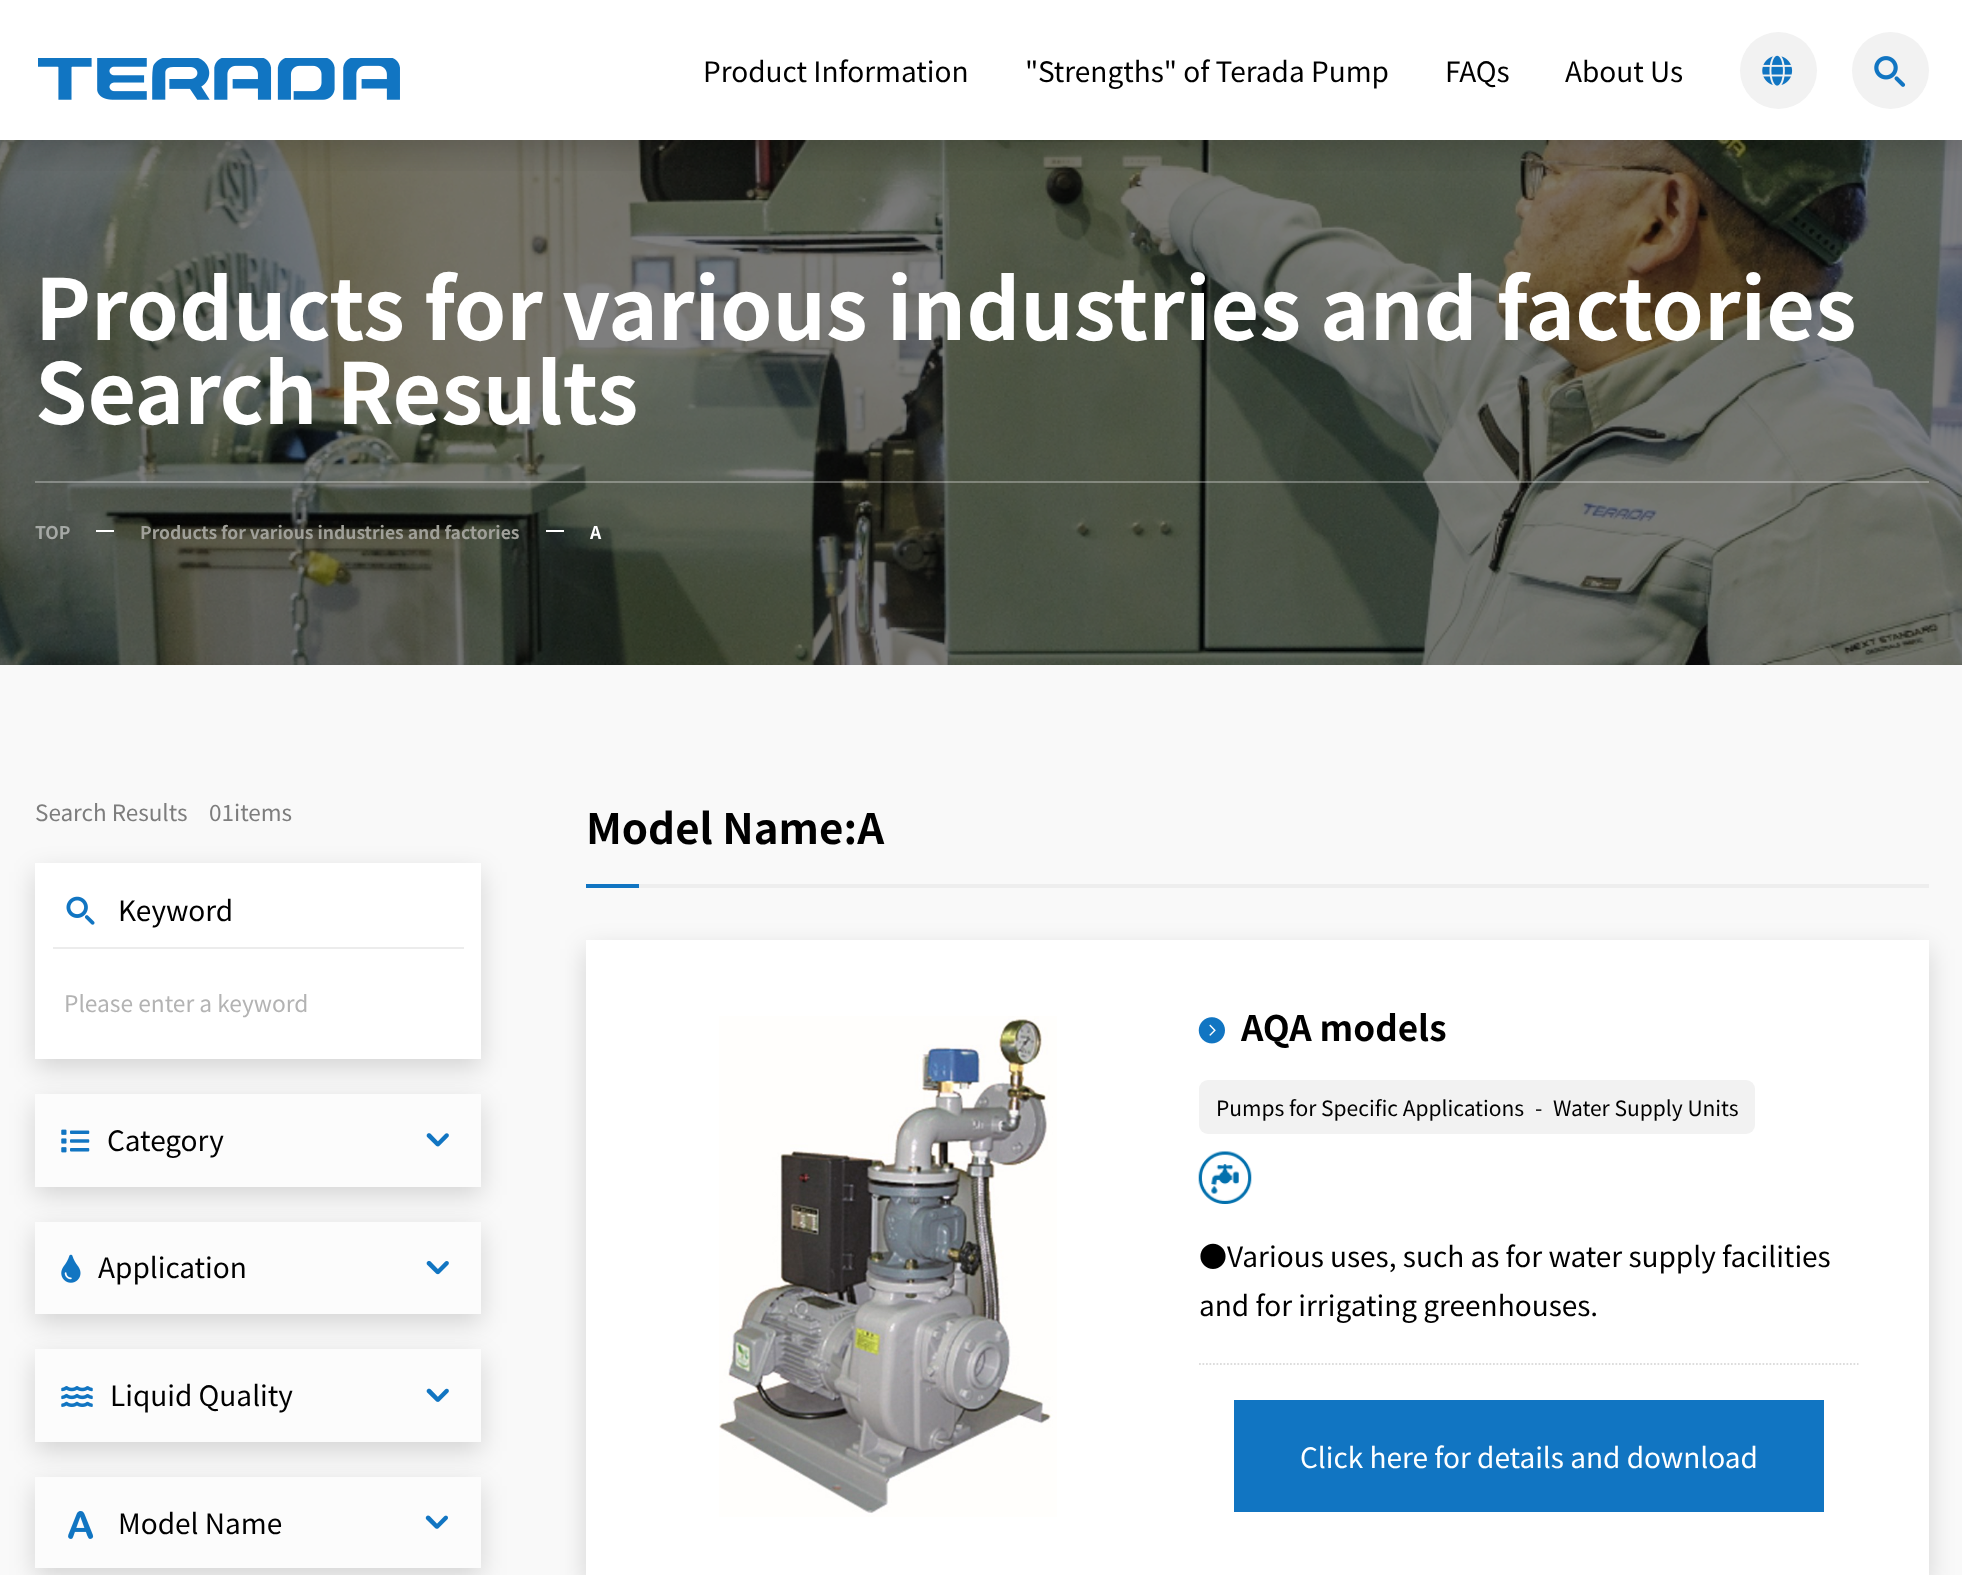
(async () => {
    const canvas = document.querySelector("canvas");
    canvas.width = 1962;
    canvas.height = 1575;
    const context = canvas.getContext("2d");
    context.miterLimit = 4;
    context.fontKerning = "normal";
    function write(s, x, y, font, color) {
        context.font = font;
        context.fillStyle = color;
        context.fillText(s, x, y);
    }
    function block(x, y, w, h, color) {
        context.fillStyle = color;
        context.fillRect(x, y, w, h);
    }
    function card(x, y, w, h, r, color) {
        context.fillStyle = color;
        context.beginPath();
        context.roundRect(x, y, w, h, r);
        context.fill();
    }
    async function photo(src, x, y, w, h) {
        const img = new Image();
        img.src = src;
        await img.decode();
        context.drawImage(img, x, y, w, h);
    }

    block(0, 0, 1962, 1575, "rgb(255, 255, 255)");
    await photo("media/4.png", 0, 140, 1962, 525);
    context.save();
    context.beginPath();
    context.rect(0, 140, 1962, 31);
    context.clip();
    context.fillStyle = "rgba(0, 0, 0, 0.2)";
    context.filter = "blur(17.5px)";
    context.beginPath();
    context.rect(0, 9, 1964, 140);
    context.fill();
    context.filter = "none";
    context.restore();
    await photo("media/1.png", 38, 58, 362, 42);
    write("Product Information", 703, 82, "28px Noto Sans JP", "rgb(0, 0, 0)");
    write("\"Strengths\" of Terada Pump", 1025, 82, "28px Noto Sans JP", "rgb(0, 0, 0)");
    write("FAQs", 1445, 82, "28px Noto Sans JP", "rgb(0, 0, 0)");
    write("About Us", 1565, 82, "28px Noto Sans JP", "rgb(0, 0, 0)");
    context.fillStyle = "rgb(242, 242, 242)";
    context.beginPath();
    context.arc(1778.5, 70.5, 38.5, 0, Math.PI * 2);
    context.fill();
    await photo("media/2.png", 1762, 55, 31, 31);
    context.beginPath();
    context.arc(1890.5, 70.5, 38.5, 0, Math.PI * 2);
    context.fill();
    await photo("media/3.png", 1874, 56, 32, 31);
    write("Products for various industries and factories", 35, 340, "bold 84px Noto Sans JP", "rgb(255, 255, 255)");
    write("Search Results", 35, 424, "bold 84px Noto Sans JP", "rgb(255, 255, 255)");
    block(35, 481, 1894, 2, "rgba(255, 255, 255, 0.3)");
    write("TOP", 35, 539, "bold 17.5px Noto Sans JP", "rgb(166, 169, 166)");
    block(96, 530, 18, 2, "rgb(255, 255, 255)");
    write("Products for various industries and factories", 140, 539, "bold 17.5px Noto Sans JP", "rgb(160, 160, 153)");
    block(546, 530, 18, 2, "rgb(255, 255, 255)");
    write("A", 590, 539, "bold 17.5px Noto Sans JP", "rgb(255, 255, 255)");
    block(0, 665, 1962, 910, "rgb(249, 249, 249)");
    write("Search Results", 35, 821, "22.5px Noto Sans JP", "rgb(125, 125, 125)");
    write("01items", 209, 821, "22.5px Noto Sans JP", "rgb(125, 125, 125)");
    context.fillStyle = "rgba(0, 0, 0, 0.15)";
    context.filter = "blur(13px)";
    context.beginPath();
    context.rect(35, 872, 446, 196);
    context.fill();
    context.filter = "none";
    block(35, 863, 446, 196, "rgb(255, 255, 255)");
    await photo("media/5.png", 66, 896, 29, 29);
    write("Keyword", 118, 921, "28px Noto Sans JP", "rgb(0, 0, 0)");
    block(53, 947, 411, 2, "rgb(236, 236, 236)");
    write("Please enter a keyword", 64, 1012, "22.75px Noto Sans JP", "rgb(179, 179, 179)");
    context.fillStyle = "rgba(0, 0, 0, 0.15)";
    context.filter = "blur(13px)";
    context.beginPath();
    context.rect(35, 1103, 446, 92);
    context.fill();
    context.filter = "none";
    block(35, 1094, 446, 93, "rgb(252, 252, 252)");
    await photo("media/6.png", 61, 1129, 29, 24);
    write("Category", 107, 1151, "28px Noto Sans JP", "rgb(0, 0, 0)");
    await photo("media/7.png", 426, 1133, 23, 14);
    context.fillStyle = "rgba(0, 0, 0, 0.15)";
    context.filter = "blur(13px)";
    context.beginPath();
    context.rect(35, 1230, 446, 93);
    context.fill();
    context.filter = "none";
    block(35, 1222, 446, 92, "rgb(252, 252, 252)");
    await photo("media/8.png", 61, 1254, 20, 29);
    write("Application", 98, 1278, "28px Noto Sans JP", "rgb(0, 0, 0)");
    await photo("media/9.png", 426, 1260, 23, 15);
    context.fillStyle = "rgba(0, 0, 0, 0.15)";
    context.filter = "blur(13px)";
    context.beginPath();
    context.rect(35, 1358, 446, 93);
    context.fill();
    context.filter = "none";
    block(35, 1349, 446, 93, "rgb(252, 252, 252)");
    await photo("media/10.png", 61, 1386, 32, 21);
    write("Liquid Quality", 110, 1406, "28px Noto Sans JP", "rgb(0, 0, 0)");
    await photo("media/11.png", 426, 1388, 23, 14);
    context.fillStyle = "rgba(0, 0, 0, 0.15)";
    context.filter = "blur(13px)";
    context.beginPath();
    context.rect(35, 1486, 446, 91);
    context.fill();
    context.filter = "none";
    block(35, 1477, 446, 91, "rgb(252, 252, 252)");
    await photo("media/12.png", 68, 1511, 26, 28);
    write("Model Name", 118, 1534, "28px Noto Sans JP", "rgb(0, 0, 0)");
    await photo("media/13.png", 425, 1515, 23, 14);
    write("Model Name:A", 586, 844, "bold 42px Noto Sans JP", "rgb(0, 0, 0)");
    block(586, 884, 53, 4, "rgb(17, 117, 194)");
    block(639, 884, 1290, 4, "rgb(238, 238, 238)");
    context.fillStyle = "rgba(0, 0, 0, 0.15)";
    context.filter = "blur(13px)";
    context.beginPath();
    context.rect(586, 949, 1343, 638);
    context.fill();
    context.filter = "none";
    block(586, 940, 1343, 635, "rgb(255, 255, 255)");
    await photo("media/14.png", 719, 1016, 338, 501);
    await photo("media/15.png", 1198, 1017, 27, 27);
    write("AQA models", 1241, 1041, "bold 35px Noto Sans JP", "rgb(0, 0, 0)");
    card(1199, 1080, 556, 54, 9, "rgb(242, 242, 242)");
    write("Pumps for Specific Applications", 1216, 1116, "21px Noto Sans JP", "rgb(0, 0, 0)");
    write("-", 1535, 1116, "21px Noto Sans JP", "rgb(0, 0, 0)");
    write("Water Supply Units", 1553, 1116, "21px Noto Sans JP", "rgb(0, 0, 0)");
    await photo("media/16.png", 1198, 1151, 54, 53);
    write("●Various uses, such as for water supply facilities", 1199, 1267, "28px Noto Sans JP", "rgb(0, 0, 0)");
    write("and for irrigating greenhouses.", 1199, 1316, "28px Noto Sans JP", "rgb(0, 0, 0)");
    context.beginPath();
    context.moveTo(1199, 1364);
    context.lineTo(1858.5, 1364);
    context.strokeStyle = "rgb(221, 221, 221)";
    context.lineWidth = 1.8;
    context.setLineDash([1.75, 1.75]);
    context.stroke();
    block(1234, 1400, 590, 112, "rgb(17, 117, 194)");
    write("Click here for details and download", 1300, 1468, "28px Noto Sans JP", "rgb(255, 255, 255)");
})();
